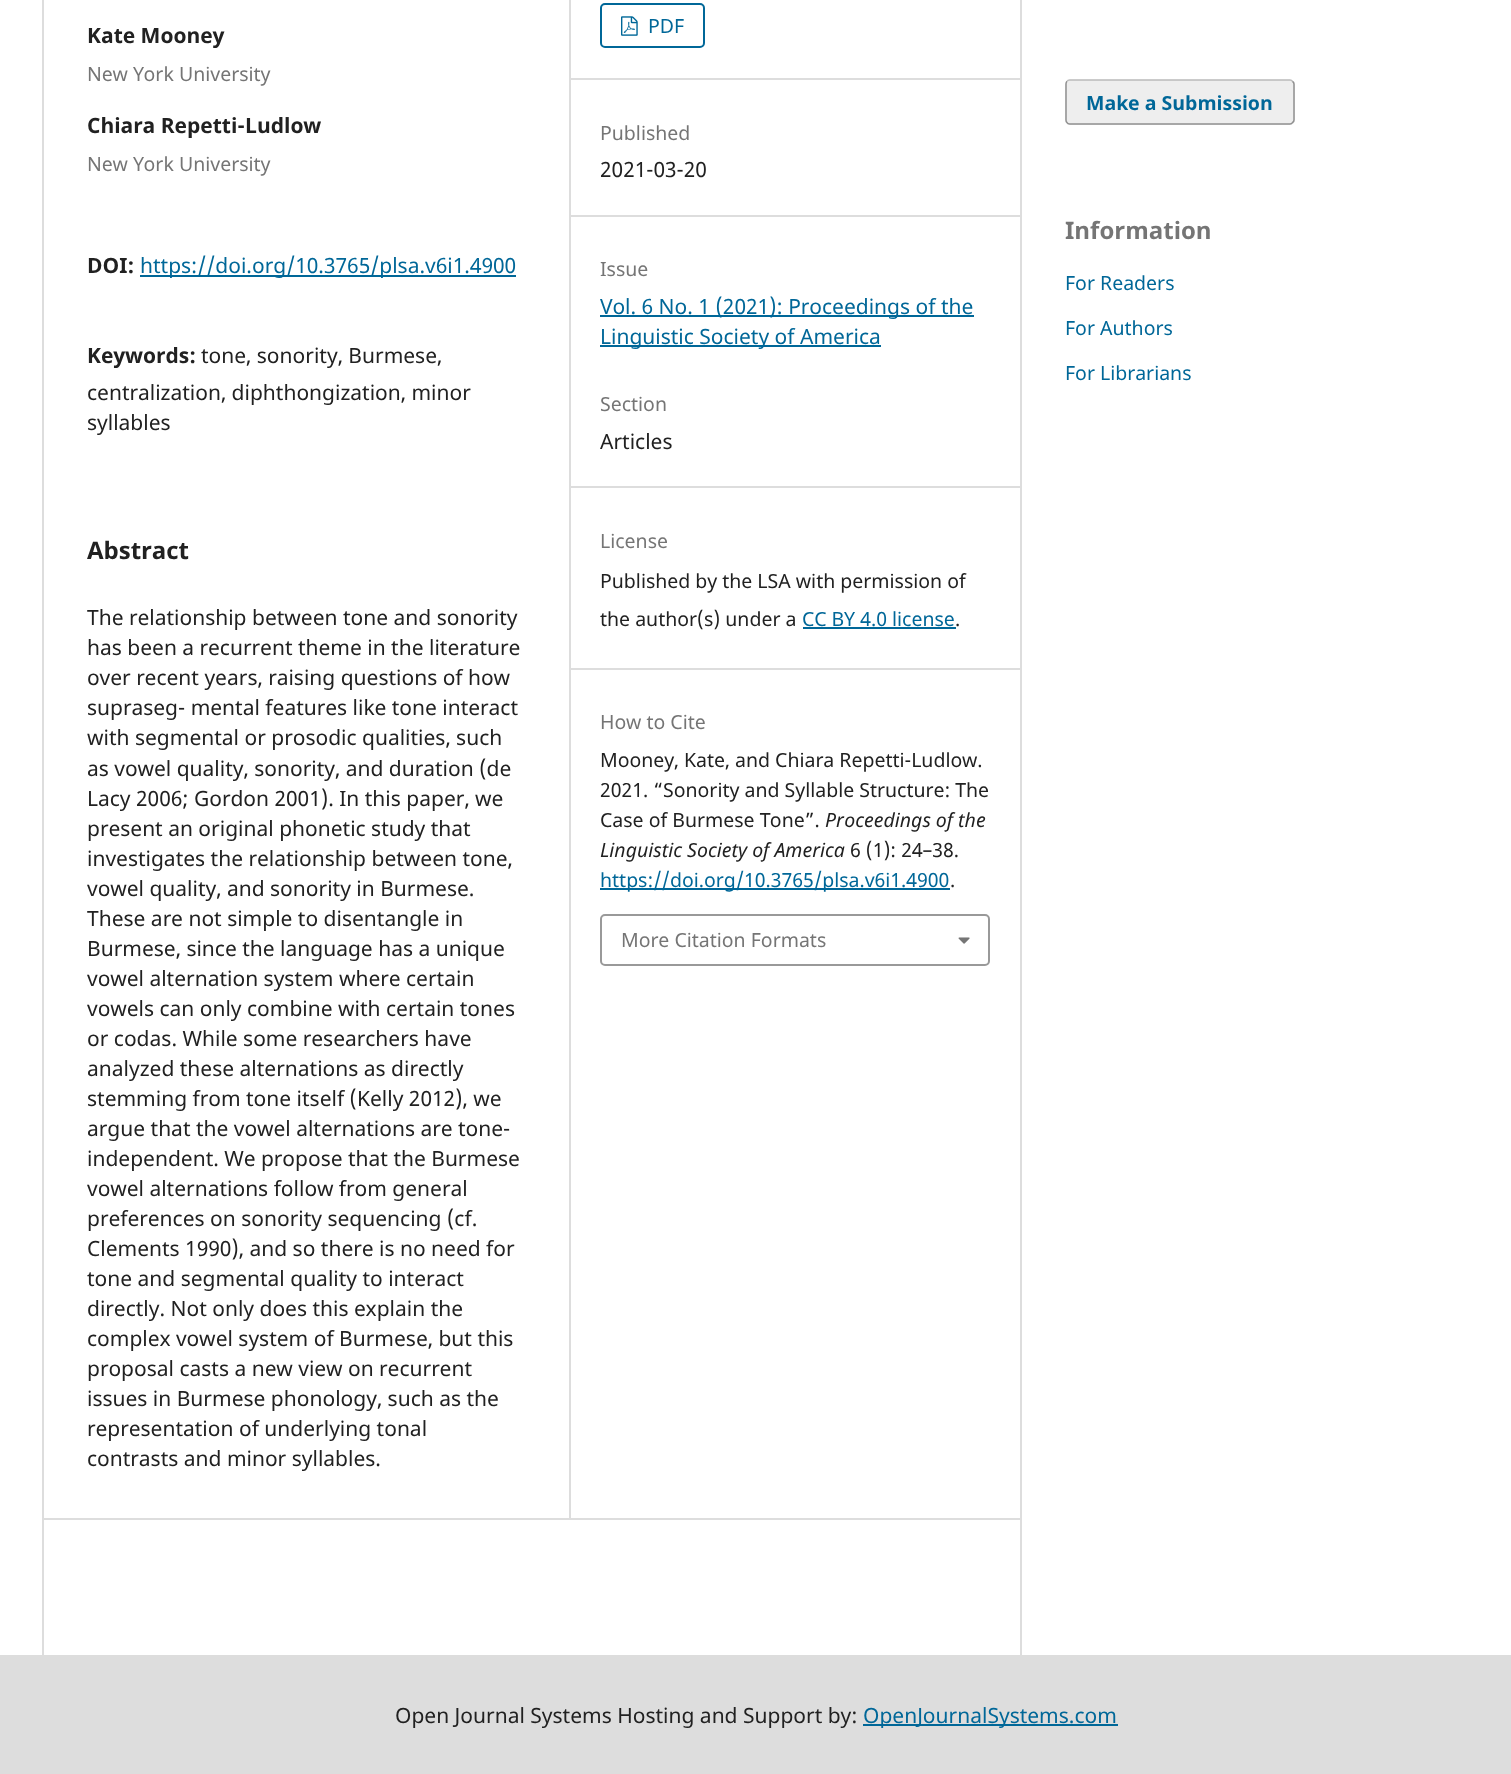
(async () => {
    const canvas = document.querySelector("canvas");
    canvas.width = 1511;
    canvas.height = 1774;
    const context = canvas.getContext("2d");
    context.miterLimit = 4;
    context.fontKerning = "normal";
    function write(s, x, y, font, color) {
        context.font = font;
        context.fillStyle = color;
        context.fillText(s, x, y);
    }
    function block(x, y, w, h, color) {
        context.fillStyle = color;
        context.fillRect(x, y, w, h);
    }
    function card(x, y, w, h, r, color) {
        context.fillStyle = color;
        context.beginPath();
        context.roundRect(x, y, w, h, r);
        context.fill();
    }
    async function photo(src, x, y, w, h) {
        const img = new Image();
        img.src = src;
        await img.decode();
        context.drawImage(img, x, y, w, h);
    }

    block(0, 0, 1511, 1774, "rgb(255, 255, 255)");
    block(42, 1518, 978, 2, "rgb(221, 221, 221)");
    block(42, 0, 2, 1655, "rgb(221, 221, 221)");
    block(569, 0, 2, 1518, "rgb(221, 221, 221)");
    write("Kate Mooney", 87, 43, "bold 21px Noto Sans", "rgb(33, 33, 33)");
    write("New York University", 87, 81, "19.5px Noto Sans", "rgb(117, 117, 117)");
    write("Chiara Repetti-Ludlow", 87, 133, "bold 21px Noto Sans", "rgb(33, 33, 33)");
    write("New York University", 87, 171, "19.5px Noto Sans", "rgb(117, 117, 117)");
    write("DOI:", 87, 273, "bold 21px Noto Sans", "rgb(33, 33, 33)");
    block(140, 275, 376, 2, "rgb(0, 103, 152)");
    write("https://doi.org/10.3765/plsa.v6i1.4900", 140, 273, "21px Noto Sans", "rgb(0, 103, 152)");
    write("Keywords:", 87, 363, "bold 21px Noto Sans", "rgb(33, 33, 33)");
    write("tone, sonority, Burmese,", 201, 363, "21px Noto Sans", "rgb(33, 33, 33)");
    write("centralization, diphthongization, minor", 87, 400, "21px Noto Sans", "rgb(33, 33, 33)");
    write("syllables", 87, 430, "21px Noto Sans", "rgb(33, 33, 33)");
    write("Abstract", 87, 559, "bold 24px Noto Sans", "rgb(33, 33, 33)");
    write("The relationship between tone and sonority", 87, 625, "21px Noto Sans", "rgb(33, 33, 33)");
    write("has been a recurrent theme in the literature", 87, 655, "21px Noto Sans", "rgb(33, 33, 33)");
    write("over recent years, raising questions of how", 87, 685, "21px Noto Sans", "rgb(33, 33, 33)");
    write("supraseg- mental features like tone interact", 87, 715, "21px Noto Sans", "rgb(33, 33, 33)");
    write("with segmental or prosodic qualities, such", 87, 745, "21px Noto Sans", "rgb(33, 33, 33)");
    write("as vowel quality, sonority, and duration (de", 87, 776, "21px Noto Sans", "rgb(33, 33, 33)");
    write("Lacy 2006; Gordon 2001). In this paper, we", 87, 806, "21px Noto Sans", "rgb(33, 33, 33)");
    write("present an original phonetic study that", 87, 836, "21px Noto Sans", "rgb(33, 33, 33)");
    write("investigates the relationship between tone,", 87, 866, "21px Noto Sans", "rgb(33, 33, 33)");
    write("vowel quality, and sonority in Burmese.", 87, 896, "21px Noto Sans", "rgb(33, 33, 33)");
    write("These are not simple to disentangle in", 87, 926, "21px Noto Sans", "rgb(33, 33, 33)");
    write("Burmese, since the language has a unique", 87, 956, "21px Noto Sans", "rgb(33, 33, 33)");
    write("vowel alternation system where certain", 87, 986, "21px Noto Sans", "rgb(33, 33, 33)");
    write("vowels can only combine with certain tones", 87, 1016, "21px Noto Sans", "rgb(33, 33, 33)");
    write("or codas. While some researchers have", 87, 1046, "21px Noto Sans", "rgb(33, 33, 33)");
    write("analyzed these alternations as directly", 87, 1076, "21px Noto Sans", "rgb(33, 33, 33)");
    write("stemming from tone itself (Kelly 2012), we", 87, 1106, "21px Noto Sans", "rgb(33, 33, 33)");
    write("argue that the vowel alternations are tone-", 87, 1136, "21px Noto Sans", "rgb(33, 33, 33)");
    write("independent. We propose that the Burmese", 87, 1166, "21px Noto Sans", "rgb(33, 33, 33)");
    write("vowel alternations follow from general", 87, 1196, "21px Noto Sans", "rgb(33, 33, 33)");
    write("preferences on sonority sequencing (cf.", 87, 1226, "21px Noto Sans", "rgb(33, 33, 33)");
    write("Clements 1990), and so there is no need for", 87, 1256, "21px Noto Sans", "rgb(33, 33, 33)");
    write("tone and segmental quality to interact", 87, 1286, "21px Noto Sans", "rgb(33, 33, 33)");
    write("directly. Not only does this explain the", 87, 1316, "21px Noto Sans", "rgb(33, 33, 33)");
    write("complex vowel system of Burmese, but this", 87, 1346, "21px Noto Sans", "rgb(33, 33, 33)");
    write("proposal casts a new view on recurrent", 87, 1376, "21px Noto Sans", "rgb(33, 33, 33)");
    write("issues in Burmese phonology, such as the", 87, 1406, "21px Noto Sans", "rgb(33, 33, 33)");
    write("representation of underlying tonal", 87, 1436, "21px Noto Sans", "rgb(33, 33, 33)");
    write("contrasts and minor syllables.", 87, 1466, "21px Noto Sans", "rgb(33, 33, 33)");
    block(570, 78, 450, 2, "rgb(221, 221, 221)");
    context.beginPath();
    context.roundRect(601, 4, 103, 43, 4);
    context.strokeStyle = "rgb(0, 103, 152)";
    context.lineWidth = 2;
    context.stroke();
    await photo("media/1.png", 621, 16, 17, 20);
    write("PDF", 648, 33, "19.5px Noto Sans", "rgb(0, 103, 152)");
    block(570, 215, 450, 2, "rgb(221, 221, 221)");
    write("Published", 600, 140, "19.5px Noto Sans", "rgb(117, 117, 117)");
    write("2021-03-20", 600, 177, "21px Noto Sans", "rgb(33, 33, 33)");
    block(570, 486, 450, 2, "rgb(221, 221, 221)");
    write("Issue", 600, 276, "19.5px Noto Sans", "rgb(117, 117, 117)");
    block(600, 315, 374, 2, "rgb(0, 103, 152)");
    write("Vol. 6 No. 1 (2021): Proceedings of the", 600, 314, "21px Noto Sans", "rgb(0, 103, 152)");
    block(600, 345, 281, 2, "rgb(0, 103, 152)");
    write("Linguistic Society of America", 600, 344, "21px Noto Sans", "rgb(0, 103, 152)");
    write("Section", 600, 411, "19.5px Noto Sans", "rgb(117, 117, 117)");
    write("Articles", 600, 449, "21px Noto Sans", "rgb(33, 33, 33)");
    block(570, 668, 450, 2, "rgb(221, 221, 221)");
    write("License", 600, 548, "19.5px Noto Sans", "rgb(117, 117, 117)");
    write("Published by the LSA with permission of", 600, 588, "19.5px Noto Sans", "rgb(33, 33, 33)");
    write("the author(s) under a", 600, 626, "19.5px Noto Sans", "rgb(33, 33, 33)");
    write("CC BY 4.0 license", 802, 626, "19.5px Noto Sans", "rgb(0, 103, 152)");
    block(803, 627, 153, 2, "rgb(0, 103, 152)");
    write(".", 955, 626, "19.5px Noto Sans", "rgb(33, 33, 33)");
    write("How to Cite", 600, 729, "19.5px Noto Sans", "rgb(117, 117, 117)");
    write("Mooney, Kate, and Chiara Repetti-Ludlow.", 600, 767, "19.5px Noto Sans", "rgb(33, 33, 33)");
    write("2021. “Sonority and Syllable Structure: The", 600, 797, "19.5px Noto Sans", "rgb(33, 33, 33)");
    write("Case of Burmese Tone”.", 600, 827, "19.5px Noto Sans", "rgb(33, 33, 33)");
    write("Proceedings of the", 825, 827, "italic 19.5px Noto Sans", "rgb(33, 33, 33)");
    write("Linguistic Society of America", 600, 857, "italic 19.5px Noto Sans", "rgb(33, 33, 33)");
    write("6 (1): 24–38.", 850, 857, "19.5px Noto Sans", "rgb(33, 33, 33)");
    block(600, 888, 350, 2, "rgb(0, 103, 152)");
    write("https://doi.org/10.3765/plsa.v6i1.4900", 600, 887, "19.5px Noto Sans", "rgb(0, 103, 152)");
    write(".", 950, 887, "19.5px Noto Sans", "rgb(33, 33, 33)");
    context.beginPath();
    context.roundRect(601, 915, 388, 50, 4);
    context.strokeStyle = "rgb(153, 153, 153)";
    context.stroke();
    write("More Citation Formats", 621, 947, "19.5px Noto Sans", "rgb(117, 117, 117)");
    await photo("media/2.png", 958, 937, 12, 7);
    block(1020, 0, 2, 1655, "rgb(221, 221, 221)");
    card(1065, 80, 230, 45, 5, "rgb(238, 238, 238)");
    context.beginPath();
    context.moveTo(1067, 81.5);
    context.bezierCurveTo(1067.5, 80.5, 1068.5, 80, 1069.5, 80);
    context.lineTo(1290, 80);
    context.bezierCurveTo(1291, 80, 1292, 80.5, 1292.5, 81.5);
    context.strokeStyle = "rgb(187, 187, 187)";
    context.lineWidth = 1.5;
    context.stroke();
    context.beginPath();
    context.moveTo(1292.5, 81.5);
    context.bezierCurveTo(1293.5, 82, 1294, 83, 1294, 84);
    context.lineTo(1294, 120);
    context.bezierCurveTo(1294, 121, 1293.5, 122, 1292.5, 122.5);
    context.bezierCurveTo(1292, 123.5, 1291, 124, 1290, 124);
    context.lineTo(1069.5, 124);
    context.bezierCurveTo(1068.5, 124, 1067.5, 123.5, 1067, 122.5);
    context.bezierCurveTo(1066, 122, 1066, 121, 1066, 120);
    context.lineTo(1066, 84);
    context.bezierCurveTo(1066, 83, 1066, 82, 1067, 81.5);
    context.strokeStyle = "rgba(0, 0, 0, 0.4)";
    context.stroke();
    write("Make a Submission", 1086, 110, "bold 19.5px Noto Sans", "rgb(0, 103, 152)");
    write("Information", 1065, 239, "bold 24px Noto Sans", "rgb(117, 117, 117)");
    write("For Readers", 1065, 290, "19.5px Noto Sans", "rgb(0, 103, 152)");
    write("For Authors", 1065, 335, "19.5px Noto Sans", "rgb(0, 103, 152)");
    write("For Librarians", 1065, 380, "19.5px Noto Sans", "rgb(0, 103, 152)");
    block(0, 1655, 1511, 119, "rgb(221, 221, 221)");
    write("Open Journal Systems Hosting and Support by:", 395, 1723, "21px Noto Sans", "rgb(33, 33, 33)");
    block(863, 1724, 255, 2, "rgb(0, 103, 152)");
    write("OpenJournalSystems.com", 863, 1723, "21px Noto Sans", "rgb(0, 103, 152)");
})();
